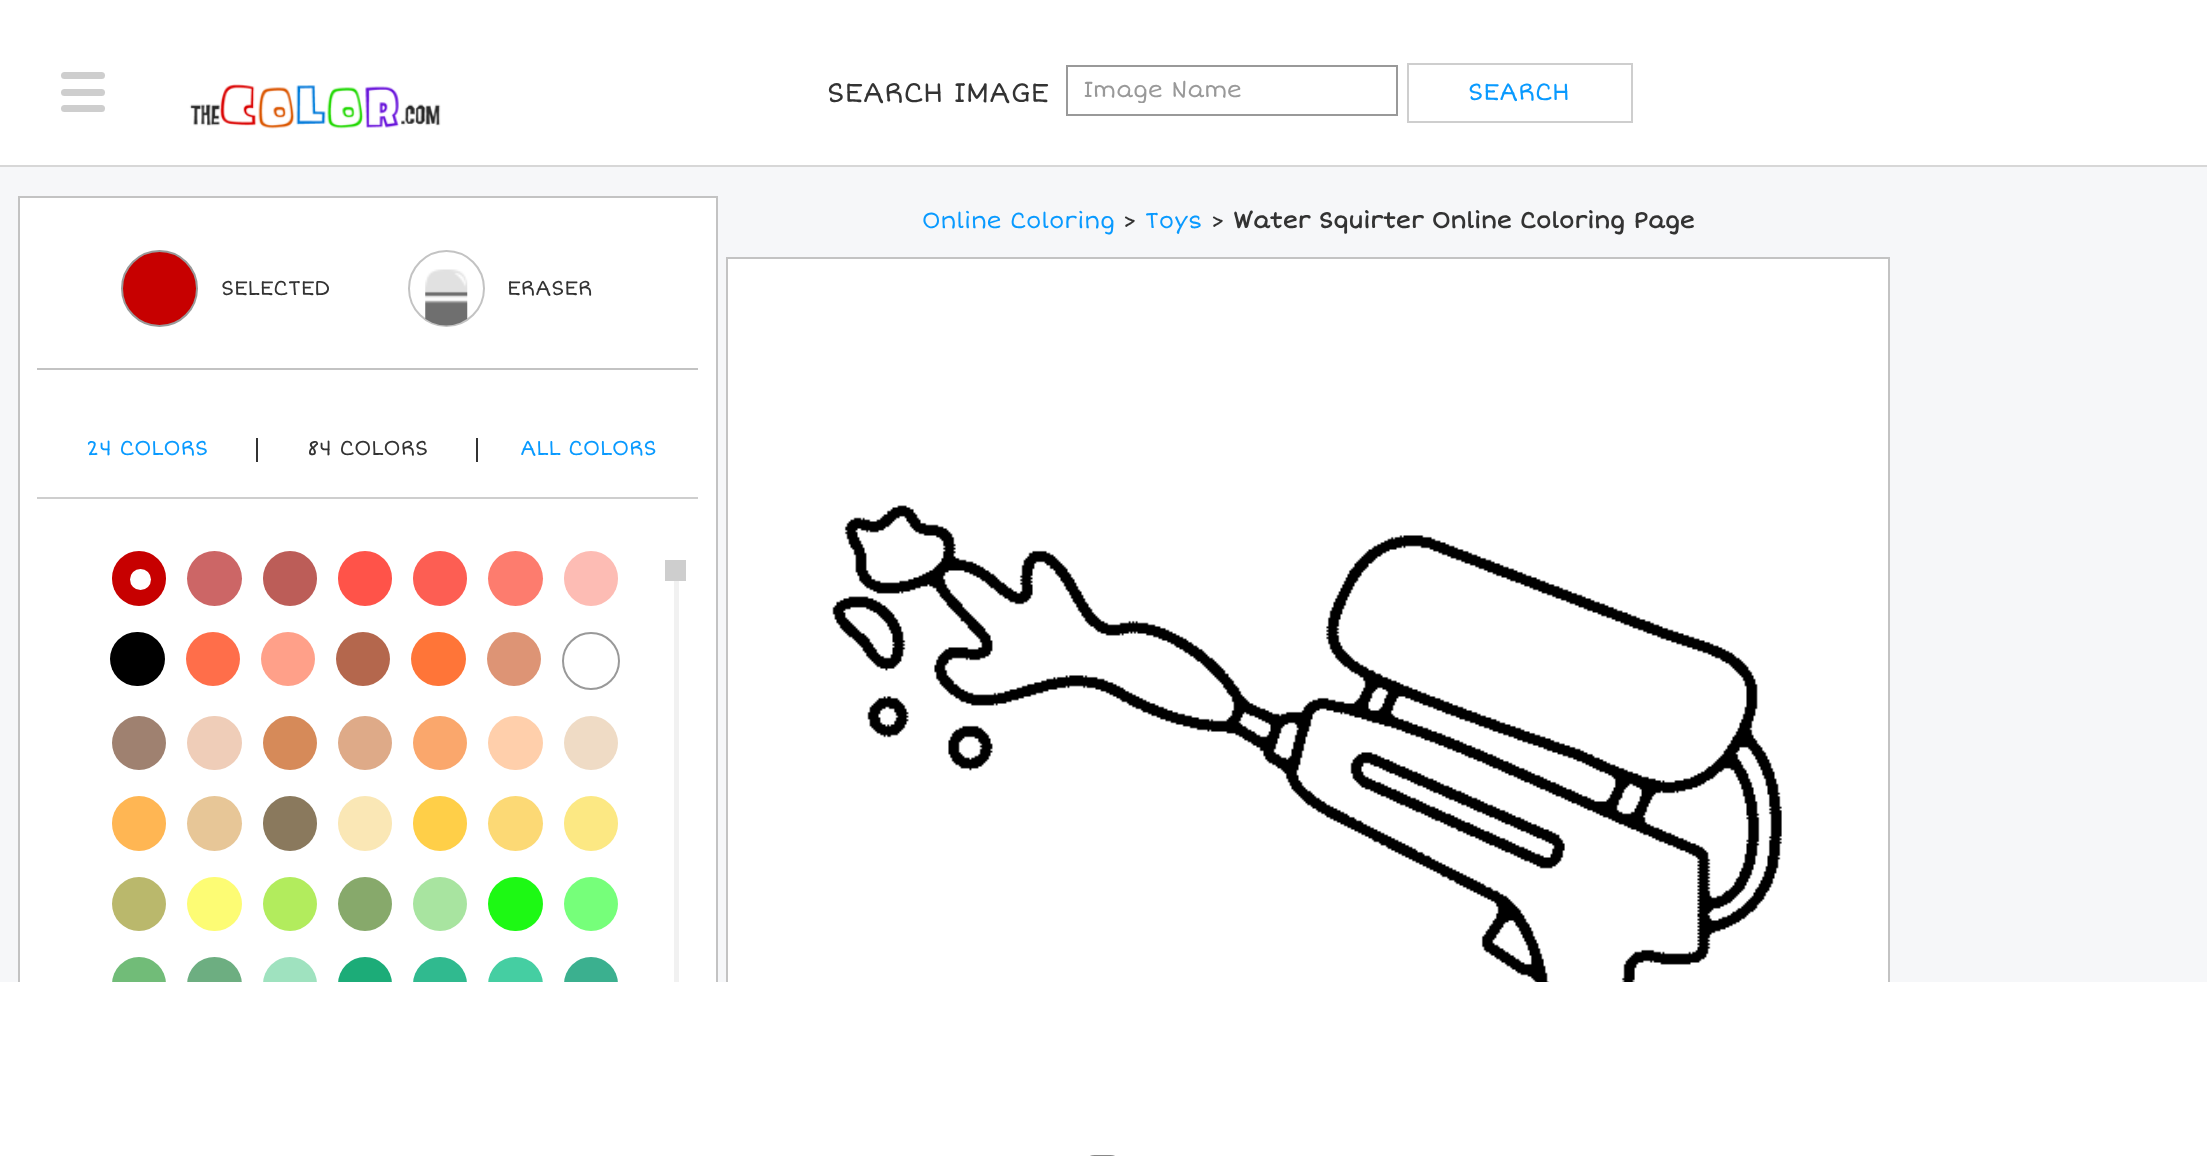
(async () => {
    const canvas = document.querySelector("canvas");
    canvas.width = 2207;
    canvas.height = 1156;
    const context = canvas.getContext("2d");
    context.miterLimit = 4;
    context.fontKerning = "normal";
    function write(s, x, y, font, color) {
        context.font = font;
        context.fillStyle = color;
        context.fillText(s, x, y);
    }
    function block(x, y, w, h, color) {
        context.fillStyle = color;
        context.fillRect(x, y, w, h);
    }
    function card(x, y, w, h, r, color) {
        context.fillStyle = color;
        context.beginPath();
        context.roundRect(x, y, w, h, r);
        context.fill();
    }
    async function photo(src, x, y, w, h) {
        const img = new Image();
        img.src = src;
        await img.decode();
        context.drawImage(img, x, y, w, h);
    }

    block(0, 0, 2207, 1156, "rgb(246, 247, 249)");
    block(0, 0, 2207, 165, "rgb(255, 255, 255)");
    block(0, 165, 2207, 2, "rgb(215, 215, 215)");
    card(61, 72, 44, 7, 3.5, "rgb(206, 206, 206)");
    card(61, 89, 44, 7, 3.5, "rgb(206, 206, 206)");
    card(61, 105, 44, 7, 3.5, "rgb(206, 206, 206)");
    await photo("media/1.png", 189, 84, 252, 45);
    write("SEARCH IMAGE", 827, 102, "28px Short Stack", "rgb(51, 51, 51)");
    context.strokeStyle = "rgb(153, 153, 153)";
    context.lineWidth = 2;
    context.strokeRect(1067, 66, 330, 49);
    context.save();
    context.beginPath();
    context.rect(1083, 75, 291, 28);
    context.clip();
    write("Image Name", 1083, 97, "22.75px Short Stack", "rgb(153, 153, 153)");
    context.restore();
    context.strokeStyle = "rgb(206, 206, 206)";
    context.strokeRect(1408, 64, 224, 58);
    write("SEARCH", 1468, 100, "24.5px Short Stack", "rgb(9, 154, 255)");
    write("Online Coloring", 922, 228, "22.75px Short Stack", "rgb(9, 154, 255)");
    write(">", 1123, 228, "22.75px Short Stack", "rgb(51, 51, 51)");
    write("Toys", 1145, 228, "22.75px Short Stack", "rgb(9, 154, 255)");
    write(">", 1211, 228, "22.75px Short Stack", "rgb(51, 51, 51)");
    write("Water Squirter Online Coloring Page", 1233, 228, "bold 22.75px Short Stack", "rgb(51, 51, 51)");
    block(728, 259, 1160, 723, "rgb(255, 255, 255)");
    context.strokeStyle = "rgb(195, 195, 195)";
    context.strokeRect(727, 258, 1162, 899);
    await photo("media/2.png", 832, 505, 950, 477);
    block(20, 198, 696, 784, "rgb(255, 255, 255)");
    context.strokeRect(19, 197, 698, 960);
    block(37, 368, 661, 2, "rgb(195, 195, 195)");
    context.fillStyle = "rgb(199, 0, 0)";
    context.beginPath();
    context.arc(159.5, 288.5, 37.5, 0, Math.PI * 2);
    context.fill();
    context.strokeStyle = "rgb(153, 153, 153)";
    context.stroke();
    write("SELECTED", 221, 295, "21px Short Stack", "rgb(51, 51, 51)");
    context.beginPath();
    context.arc(446.5, 288.5, 37.5, 0, Math.PI * 2);
    context.strokeStyle = "rgb(195, 195, 195)";
    context.stroke();
    await photo("media/3.png", 425, 269, 43, 57);
    write("ERASER", 507, 295, "21px Short Stack", "rgb(51, 51, 51)");
    block(37, 497, 661, 2, "rgb(206, 206, 206)");
    write("24 COLORS", 86, 455, "21px Short Stack", "rgb(9, 154, 255)");
    block(256, 438, 2, 24, "rgb(51, 51, 51)");
    write("84 COLORS", 307, 455, "21px Short Stack", "rgb(51, 51, 51)");
    block(476, 438, 2, 24, "rgb(51, 51, 51)");
    write("ALL COLORS", 520, 455, "21px Short Stack", "rgb(9, 154, 255)");
    card(112, 551, 54, 55, 27, "rgb(199, 0, 0)");
    context.fillStyle = "rgb(255, 255, 255)";
    context.beginPath();
    context.arc(140.5, 579.5, 10.5, 0, Math.PI * 2);
    context.fill();
    context.fillStyle = "rgb(204, 102, 102)";
    context.beginPath();
    context.arc(214.5, 578.5, 27.5, 0, Math.PI * 2);
    context.fill();
    card(263, 551, 54, 55, 27, "rgb(188, 93, 88)");
    card(338, 551, 54, 55, 27, "rgb(255, 83, 73)");
    card(413, 551, 54, 55, 27, "rgb(253, 94, 83)");
    context.fillStyle = "rgb(253, 124, 110)";
    context.beginPath();
    context.arc(515.5, 578.5, 27.5, 0, Math.PI * 2);
    context.fill();
    card(564, 551, 54, 55, 27, "rgb(253, 188, 180)");
    card(110, 632, 55, 54, 27, "rgb(0, 0, 0)");
    context.fillStyle = "rgb(255, 110, 74)";
    context.beginPath();
    context.arc(213, 659, 27, 0, Math.PI * 2);
    context.fill();
    context.fillStyle = "rgb(255, 160, 137)";
    context.beginPath();
    context.arc(288, 659, 27, 0, Math.PI * 2);
    context.fill();
    context.fillStyle = "rgb(180, 103, 77)";
    context.beginPath();
    context.arc(363, 659, 27, 0, Math.PI * 2);
    context.fill();
    card(411, 632, 55, 54, 27, "rgb(255, 117, 56)");
    context.fillStyle = "rgb(221, 148, 117)";
    context.beginPath();
    context.arc(514, 659, 27, 0, Math.PI * 2);
    context.fill();
    context.beginPath();
    context.arc(591, 661, 28, 0, Math.PI * 2);
    context.strokeStyle = "rgb(153, 153, 153)";
    context.stroke();
    context.fillStyle = "rgb(159, 129, 112)";
    context.beginPath();
    context.arc(139, 743, 27, 0, Math.PI * 2);
    context.fill();
    card(187, 716, 55, 54, 27, "rgb(239, 205, 184)");
    context.fillStyle = "rgb(214, 138, 89)";
    context.beginPath();
    context.arc(290, 743, 27, 0, Math.PI * 2);
    context.fill();
    context.fillStyle = "rgb(222, 170, 136)";
    context.beginPath();
    context.arc(365, 743, 27, 0, Math.PI * 2);
    context.fill();
    context.fillStyle = "rgb(250, 167, 108)";
    context.beginPath();
    context.arc(440, 743, 27, 0, Math.PI * 2);
    context.fill();
    card(488, 716, 55, 54, 27, "rgb(255, 207, 171)");
    context.fillStyle = "rgb(239, 219, 197)";
    context.beginPath();
    context.arc(591, 743, 27, 0, Math.PI * 2);
    context.fill();
    card(112, 796, 54, 55, 27, "rgb(255, 182, 83)");
    context.fillStyle = "rgb(231, 198, 151)";
    context.beginPath();
    context.arc(214.5, 823.5, 27.5, 0, Math.PI * 2);
    context.fill();
    card(263, 796, 54, 55, 27, "rgb(138, 121, 93)");
    card(338, 796, 54, 55, 27, "rgb(250, 231, 181)");
    card(413, 796, 54, 55, 27, "rgb(255, 207, 72)");
    context.fillStyle = "rgb(252, 217, 117)";
    context.beginPath();
    context.arc(515.5, 823.5, 27.5, 0, Math.PI * 2);
    context.fill();
    card(564, 796, 54, 55, 27, "rgb(252, 232, 131)");
    context.fillStyle = "rgb(186, 184, 108)";
    context.beginPath();
    context.arc(139, 904, 27, 0, Math.PI * 2);
    context.fill();
    card(187, 877, 55, 54, 27, "rgb(253, 252, 116)");
    context.fillStyle = "rgb(178, 236, 93)";
    context.beginPath();
    context.arc(290, 904, 27, 0, Math.PI * 2);
    context.fill();
    context.fillStyle = "rgb(135, 169, 107)";
    context.beginPath();
    context.arc(365, 904, 27, 0, Math.PI * 2);
    context.fill();
    context.fillStyle = "rgb(168, 228, 160)";
    context.beginPath();
    context.arc(440, 904, 27, 0, Math.PI * 2);
    context.fill();
    card(488, 877, 55, 54, 27, "rgb(29, 249, 20)");
    context.fillStyle = "rgb(118, 255, 122)";
    context.beginPath();
    context.arc(591, 904, 27, 0, Math.PI * 2);
    context.fill();
    card(112, 957, 54, 55, 27, "rgb(113, 188, 120)");
    context.fillStyle = "rgb(109, 174, 129)";
    context.beginPath();
    context.arc(214.5, 984.5, 27.5, 0, Math.PI * 2);
    context.fill();
    card(263, 957, 54, 55, 27, "rgb(159, 226, 191)");
    card(338, 957, 54, 55, 27, "rgb(28, 172, 120)");
    card(413, 957, 54, 55, 27, "rgb(48, 186, 143)");
    context.fillStyle = "rgb(69, 206, 162)";
    context.beginPath();
    context.arc(515.5, 984.5, 27.5, 0, Math.PI * 2);
    context.fill();
    card(564, 957, 54, 55, 27, "rgb(59, 176, 143)");
    block(674, 581, 5, 401, "rgb(241, 241, 241)");
    block(665, 560, 21, 21, "rgb(206, 206, 206)");
    block(0, 982, 2207, 174, "rgb(255, 255, 255)");
    context.beginPath();
    context.roundRect(1084, 1156, 37, 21, 18.5);
    context.strokeStyle = "rgb(249, 249, 249)";
    context.stroke();
    context.beginPath();
    context.roundRect(1084, 1156, 37, 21, 18.5);
    context.strokeStyle = "rgb(136, 136, 136)";
    context.stroke();
})();
